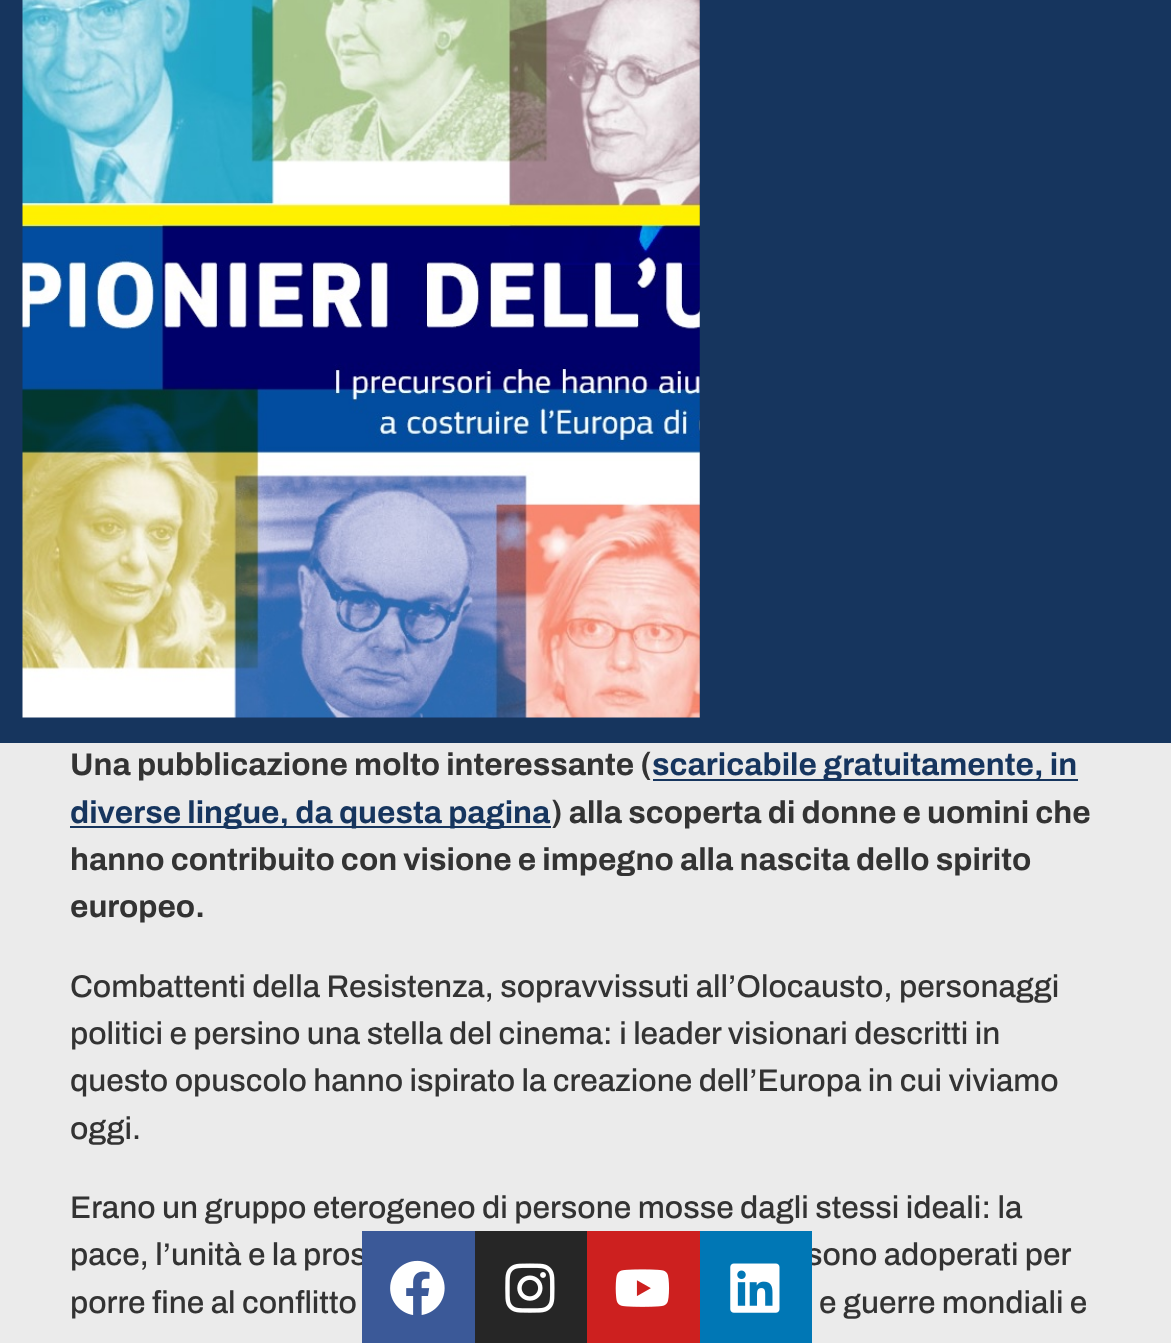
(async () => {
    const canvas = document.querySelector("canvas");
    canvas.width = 1171;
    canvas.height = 1343;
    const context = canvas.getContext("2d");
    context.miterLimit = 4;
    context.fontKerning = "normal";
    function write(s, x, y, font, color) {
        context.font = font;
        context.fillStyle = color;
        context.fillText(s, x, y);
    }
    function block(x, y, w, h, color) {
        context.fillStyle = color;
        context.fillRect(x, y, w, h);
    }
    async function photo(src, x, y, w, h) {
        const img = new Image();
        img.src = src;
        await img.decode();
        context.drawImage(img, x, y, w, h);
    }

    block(0, 0, 1171, 1343, "rgb(235, 235, 235)");
    block(0, 0, 1171, 743, "rgb(22, 53, 94)");
    await photo("media/1.png", 22, 0, 678, 718);
    write("Una pubblicazione molto interessante (", 70, 775, "bold 31.5px Archivo", "rgb(51, 51, 51)");
    block(653, 779, 425, 2, "rgb(22, 53, 94)");
    write("scaricabile gratuitamente, in", 652, 775, "bold 31.5px Archivo", "rgb(22, 53, 94)");
    block(70, 826, 481, 2, "rgb(22, 53, 94)");
    write("diverse lingue, da questa pagina", 70, 823, "bold 31.5px Archivo", "rgb(22, 53, 94)");
    write(") alla scoperta di donne e uomini che", 551, 823, "bold 31.5px Archivo", "rgb(51, 51, 51)");
    write("hanno contribuito con visione e impegno alla nascita dello spirito", 70, 870, "bold 31.5px Archivo", "rgb(51, 51, 51)");
    write("europeo.", 70, 917, "bold 31.5px Archivo", "rgb(51, 51, 51)");
    write("Combattenti della Resistenza, sopravvissuti all’Olocausto, personaggi", 70, 997, "500 31.5px Archivo", "rgb(51, 51, 51)");
    write("politici e persino una stella del cinema: i leader visionari descritti in", 70, 1044, "500 31.5px Archivo", "rgb(51, 51, 51)");
    write("questo opuscolo hanno ispirato la creazione dell’Europa in cui viviamo", 70, 1091, "500 31.5px Archivo", "rgb(51, 51, 51)");
    write("oggi.", 70, 1139, "500 31.5px Archivo", "rgb(51, 51, 51)");
    write("Erano un gruppo eterogeneo di persone mosse dagli stessi ideali: la", 70, 1218, "500 31.5px Archivo", "rgb(51, 51, 51)");
    write("pace, l’unità e la pros", 70, 1265, "500 31.5px Archivo", "rgb(51, 51, 51)");
    write("sono adoperati per", 806, 1265, "500 31.5px Archivo", "rgb(51, 51, 51)");
    write("porre fine al conflitto", 70, 1313, "500 31.5px Archivo", "rgb(51, 51, 51)");
    write("e guerre mondiali e", 819, 1313, "500 31.5px Archivo", "rgb(51, 51, 51)");
    block(362, 1231, 113, 112, "rgb(59, 89, 152)");
    await photo("media/2.png", 390, 1260, 55, 55);
    block(475, 1231, 112, 112, "rgb(38, 38, 38)");
    await photo("media/3.png", 505, 1263, 50, 50);
    block(587, 1231, 113, 112, "rgb(205, 32, 31)");
    await photo("media/4.png", 615, 1269, 55, 38);
    block(700, 1231, 112, 112, "rgb(0, 119, 181)");
    await photo("media/5.png", 730, 1263, 50, 50);
})();
